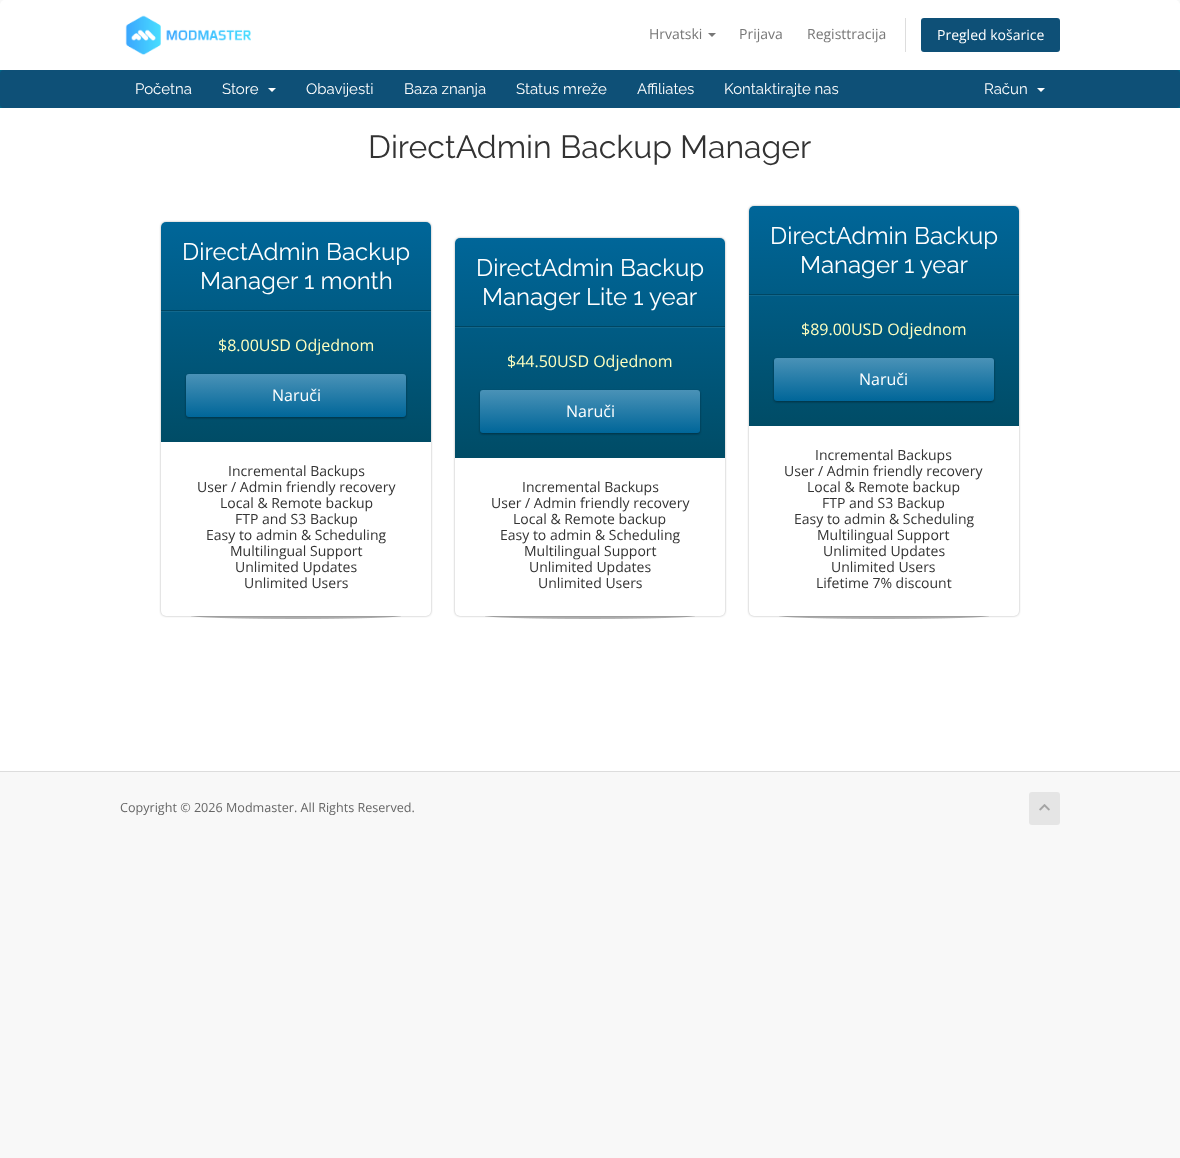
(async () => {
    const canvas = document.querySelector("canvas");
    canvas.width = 1180;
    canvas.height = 1158;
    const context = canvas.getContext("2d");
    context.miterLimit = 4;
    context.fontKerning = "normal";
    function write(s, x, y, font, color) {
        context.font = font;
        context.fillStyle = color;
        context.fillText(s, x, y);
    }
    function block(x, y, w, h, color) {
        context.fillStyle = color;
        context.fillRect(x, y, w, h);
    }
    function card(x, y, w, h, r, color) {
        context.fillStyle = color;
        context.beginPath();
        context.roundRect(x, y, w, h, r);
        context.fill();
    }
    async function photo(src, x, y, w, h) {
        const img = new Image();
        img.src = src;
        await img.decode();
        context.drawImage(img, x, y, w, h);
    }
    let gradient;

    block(0, 0, 1180, 1158, "rgb(248, 248, 248)");
    context.fillStyle = "rgb(255, 255, 255)";
    context.beginPath();
    context.roundRect(0, 0, 1180, 70, [5, 5, 0, 0]);
    context.fill();
    await photo("media/1.png", 125, 15, 126, 40);
    write("Hrvatski", 649, 39, "14px Open Sans", "rgb(119, 119, 119)");
    context.beginPath();
    context.moveTo(708, 33);
    context.lineTo(716, 33);
    context.lineTo(712, 37);
    context.closePath();
    context.fill();
    write("Prijava", 739, 39, "14px Open Sans", "rgb(119, 119, 119)");
    write("Registtracija", 807, 39, "14px Open Sans", "rgb(119, 119, 119)");
    block(905, 18, 1, 34, "rgb(221, 221, 221)");
    card(921, 18, 139, 34, 3, "rgb(14, 80, 119)");
    write("Pregled košarice", 937, 40, "14px Open Sans", "rgb(255, 255, 255)");
    block(0, 70, 1180, 38, "rgb(0, 102, 135)");
    card(0, 70, 1180, 38, 4, "rgb(14, 80, 119)");
    write("Početna", 135, 94, "15px Raleway", "rgb(255, 255, 255)");
    write("Store", 222, 94, "15px Raleway", "rgb(255, 255, 255)");
    context.beginPath();
    context.moveTo(268, 88);
    context.lineTo(276, 88);
    context.lineTo(272, 92);
    context.closePath();
    context.fill();
    write("Obavijesti", 306, 94, "15px Raleway", "rgb(255, 255, 255)");
    write("Baza znanja", 404, 94, "15px Raleway", "rgb(255, 255, 255)");
    write("Status mreže", 516, 94, "15px Raleway", "rgb(255, 255, 255)");
    write("Affiliates", 637, 94, "15px Raleway", "rgb(255, 255, 255)");
    write("Kontaktirajte nas", 724, 94, "15px Raleway", "rgb(255, 255, 255)");
    write("Račun", 984, 94, "15px Raleway", "rgb(255, 255, 255)");
    context.beginPath();
    context.moveTo(1037, 88);
    context.lineTo(1045, 88);
    context.lineTo(1041, 92);
    context.closePath();
    context.fill();
    block(0, 108, 1180, 663, "rgb(255, 255, 255)");
    write("DirectAdmin Backup Manager", 368, 158, "32px Raleway", "rgb(51, 51, 51)");
    await photo("media/2.png", 191, 616, 210, 3);
    context.fillStyle = "rgba(0, 0, 0, 0.3)";
    context.filter = "blur(1px)";
    context.beginPath();
    context.roundRect(161, 222, 270, 394, 5);
    context.fill();
    context.filter = "none";
    card(161, 222, 270, 394, 5, "rgb(255, 255, 255)");
    gradient = context.createLinearGradient(296, 222, 296, 442);
    gradient.addColorStop(0, "rgb(0, 102, 153)");
    gradient.addColorStop(1, "rgb(0, 76, 102)");
    context.fillStyle = gradient;
    context.beginPath();
    context.roundRect(161, 222, 270, 220, [5, 5, 0, 0]);
    context.fill();
    block(161, 310, 270, 1, "rgb(0, 70, 98)");
    write("DirectAdmin Backup", 182, 260, "24px Raleway", "rgb(255, 255, 255)");
    write("Manager 1 month", 200, 289, "24px Raleway", "rgb(255, 255, 255)");
    block(161, 311, 270, 1, "rgb(18, 104, 141)");
    write("$8.00USD Odjednom", 218, 351, "16px Open Sans", "rgb(255, 255, 191)");
    context.fillStyle = "rgba(0, 0, 0, 0.4)";
    context.filter = "blur(1px)";
    context.beginPath();
    context.roundRect(186, 375, 220, 43, 3);
    context.fill();
    context.filter = "none";
    gradient = context.createLinearGradient(296, 374, 296, 417);
    gradient.addColorStop(0, "rgb(74, 146, 183)");
    gradient.addColorStop(1, "rgb(0, 102, 153)");
    context.fillStyle = gradient;
    context.beginPath();
    context.roundRect(186, 374, 220, 43, 3);
    context.fill();
    write("Naruči", 272, 401, "16px Open Sans", "rgb(255, 255, 255)");
    write("Incremental Backups", 228, 476, "14px Open Sans", "rgb(51, 51, 51)");
    write("User / Admin friendly recovery", 197, 492, "14px Open Sans", "rgb(51, 51, 51)");
    write("Local & Remote backup", 220, 508, "14px Open Sans", "rgb(51, 51, 51)");
    write("FTP and S3 Backup", 235, 524, "14px Open Sans", "rgb(51, 51, 51)");
    write("Easy to admin & Scheduling", 206, 540, "14px Open Sans", "rgb(51, 51, 51)");
    write("Multilingual Support", 230, 556, "14px Open Sans", "rgb(51, 51, 51)");
    write("Unlimited Updates", 235, 572, "14px Open Sans", "rgb(51, 51, 51)");
    write("Unlimited Users", 244, 588, "14px Open Sans", "rgb(51, 51, 51)");
    await photo("media/2.png", 485, 616, 210, 3);
    context.fillStyle = "rgba(0, 0, 0, 0.3)";
    context.filter = "blur(1px)";
    context.beginPath();
    context.roundRect(455, 238, 270, 378, 5);
    context.fill();
    context.filter = "none";
    card(455, 238, 270, 378, 5, "rgb(255, 255, 255)");
    gradient = context.createLinearGradient(590, 238, 590, 458);
    gradient.addColorStop(0, "rgb(0, 102, 153)");
    gradient.addColorStop(1, "rgb(0, 76, 102)");
    context.fillStyle = gradient;
    context.beginPath();
    context.roundRect(455, 238, 270, 220, [5, 5, 0, 0]);
    context.fill();
    block(455, 326, 270, 1, "rgb(0, 70, 98)");
    write("DirectAdmin Backup", 476, 276, "24px Raleway", "rgb(255, 255, 255)");
    write("Manager Lite 1 year", 482, 305, "24px Raleway", "rgb(255, 255, 255)");
    block(455, 327, 270, 1, "rgb(18, 104, 141)");
    write("$44.50USD Odjednom", 507, 367, "16px Open Sans", "rgb(255, 255, 191)");
    context.fillStyle = "rgba(0, 0, 0, 0.4)";
    context.filter = "blur(1px)";
    context.beginPath();
    context.roundRect(480, 391, 220, 43, 3);
    context.fill();
    context.filter = "none";
    gradient = context.createLinearGradient(590, 390, 590, 433);
    gradient.addColorStop(0, "rgb(74, 146, 183)");
    gradient.addColorStop(1, "rgb(0, 102, 153)");
    context.fillStyle = gradient;
    context.beginPath();
    context.roundRect(480, 390, 220, 43, 3);
    context.fill();
    write("Naruči", 566, 417, "16px Open Sans", "rgb(255, 255, 255)");
    write("Incremental Backups", 522, 492, "14px Open Sans", "rgb(51, 51, 51)");
    write("User / Admin friendly recovery", 491, 508, "14px Open Sans", "rgb(51, 51, 51)");
    write("Local & Remote backup", 513, 524, "14px Open Sans", "rgb(51, 51, 51)");
    write("Easy to admin & Scheduling", 500, 540, "14px Open Sans", "rgb(51, 51, 51)");
    write("Multilingual Support", 524, 556, "14px Open Sans", "rgb(51, 51, 51)");
    write("Unlimited Updates", 529, 572, "14px Open Sans", "rgb(51, 51, 51)");
    write("Unlimited Users", 538, 588, "14px Open Sans", "rgb(51, 51, 51)");
    await photo("media/2.png", 779, 616, 210, 3);
    context.fillStyle = "rgba(0, 0, 0, 0.3)";
    context.filter = "blur(1px)";
    context.beginPath();
    context.roundRect(749, 206, 270, 410, 5);
    context.fill();
    context.filter = "none";
    card(749, 206, 270, 410, 5, "rgb(255, 255, 255)");
    gradient = context.createLinearGradient(884, 206, 884, 426);
    gradient.addColorStop(0, "rgb(0, 102, 153)");
    gradient.addColorStop(1, "rgb(0, 76, 102)");
    context.fillStyle = gradient;
    context.beginPath();
    context.roundRect(749, 206, 270, 220, [5, 5, 0, 0]);
    context.fill();
    block(749, 294, 270, 1, "rgb(0, 70, 98)");
    write("DirectAdmin Backup", 770, 244, "24px Raleway", "rgb(255, 255, 255)");
    write("Manager 1 year", 800, 273, "24px Raleway", "rgb(255, 255, 255)");
    block(749, 295, 270, 1, "rgb(18, 104, 141)");
    write("$89.00USD Odjednom", 801, 335, "16px Open Sans", "rgb(255, 255, 191)");
    context.fillStyle = "rgba(0, 0, 0, 0.4)";
    context.filter = "blur(1px)";
    context.beginPath();
    context.roundRect(774, 359, 220, 43, 3);
    context.fill();
    context.filter = "none";
    gradient = context.createLinearGradient(884, 358, 884, 401);
    gradient.addColorStop(0, "rgb(74, 146, 183)");
    gradient.addColorStop(1, "rgb(0, 102, 153)");
    context.fillStyle = gradient;
    context.beginPath();
    context.roundRect(774, 358, 220, 43, 3);
    context.fill();
    write("Naruči", 859, 385, "16px Open Sans", "rgb(255, 255, 255)");
    write("Incremental Backups", 815, 460, "14px Open Sans", "rgb(51, 51, 51)");
    write("User / Admin friendly recovery", 784, 476, "14px Open Sans", "rgb(51, 51, 51)");
    write("Local & Remote backup", 807, 492, "14px Open Sans", "rgb(51, 51, 51)");
    write("FTP and S3 Backup", 822, 508, "14px Open Sans", "rgb(51, 51, 51)");
    write("Easy to admin & Scheduling", 794, 524, "14px Open Sans", "rgb(51, 51, 51)");
    write("Multilingual Support", 817, 540, "14px Open Sans", "rgb(51, 51, 51)");
    write("Unlimited Updates", 823, 556, "14px Open Sans", "rgb(51, 51, 51)");
    write("Unlimited Users", 831, 572, "14px Open Sans", "rgb(51, 51, 51)");
    write("Lifetime 7% discount", 816, 588, "14px Open Sans", "rgb(51, 51, 51)");
    block(0, 771, 1180, 1, "rgb(221, 221, 221)");
    write("Copyright © 2026 Modmaster. All Rights Reserved.", 120, 812, "12.6px Open Sans", "rgb(102, 102, 102)");
    card(1029, 792, 31, 33, 3, "rgb(229, 229, 229)");
    await photo("media/3.png", 1039, 804, 11, 7);
})();
